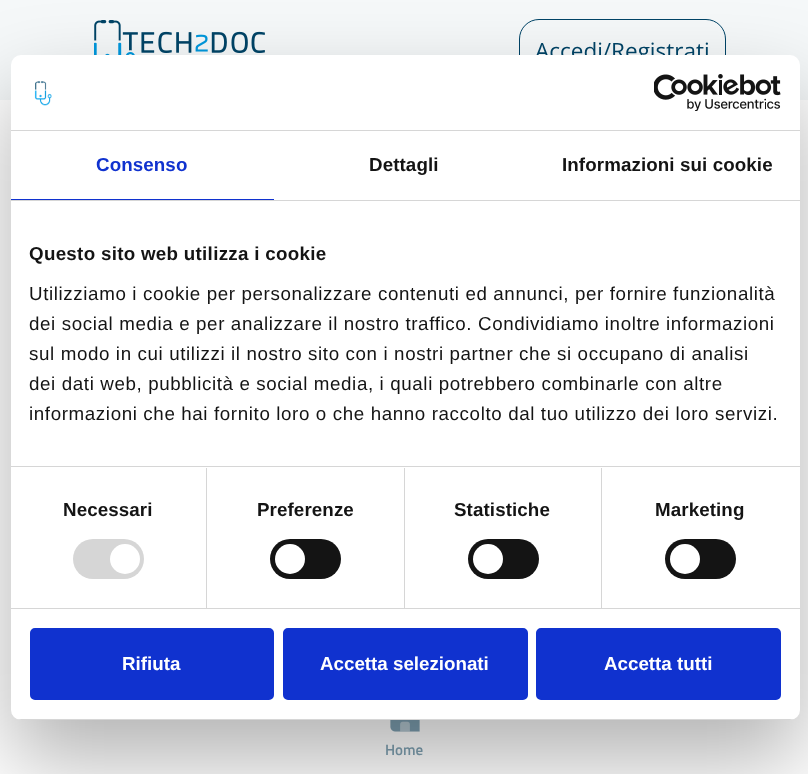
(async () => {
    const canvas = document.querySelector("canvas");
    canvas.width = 808;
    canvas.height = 774;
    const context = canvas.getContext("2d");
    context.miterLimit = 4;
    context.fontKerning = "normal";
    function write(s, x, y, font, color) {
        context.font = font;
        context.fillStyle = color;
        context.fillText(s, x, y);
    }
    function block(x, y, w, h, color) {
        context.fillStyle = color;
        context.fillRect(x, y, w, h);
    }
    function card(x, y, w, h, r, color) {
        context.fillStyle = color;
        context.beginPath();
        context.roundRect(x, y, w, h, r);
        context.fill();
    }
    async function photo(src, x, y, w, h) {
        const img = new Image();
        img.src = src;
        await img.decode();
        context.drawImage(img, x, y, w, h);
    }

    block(0, 0, 808, 774, "rgb(255, 255, 255)");
    block(0, 0, 808, 100, "rgb(245, 248, 249)");
    await photo("media/1.png", 94, 20, 171, 35);
    context.beginPath();
    context.roundRect(519.5, 19.5, 206, 61, 19.5);
    context.strokeStyle = "rgb(0, 68, 103)";
    context.stroke();
    write("Accedi/Registrati", 535, 59, "22.5px Open Sans", "rgb(0, 68, 103)");
    await photo("media/2.png", 390, 720, 30, 12);
    write("Home", 385, 755, "600 15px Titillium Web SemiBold", "rgb(128, 162, 179)");
    context.fillStyle = "rgba(0, 0, 0, 0.3)";
    context.filter = "blur(42.5px)";
    context.beginPath();
    context.roundRect(11, 95, 789, 665, 10);
    context.fill();
    context.filter = "none";
    card(11, 55, 789, 665, 10, "rgb(255, 255, 255)");
    block(11, 130, 789, 1, "rgb(214, 214, 214)");
    await photo("media/3.png", 34, 81, 18, 25);
    await photo("media/4.png", 654, 74, 127, 37);
    block(11, 200, 789, 1, "rgb(214, 214, 214)");
    block(11, 199, 263, 1, "rgb(16, 50, 207)");
    context.letterSpacing = "0.1px";
    write("Consenso", 96, 171, "bold 18.75px Liberation Sans", "rgb(16, 50, 207)");
    write("Dettagli", 369, 171, "bold 18.75px Liberation Sans", "rgb(20, 20, 20)");
    write("Informazioni sui cookie", 562, 171, "bold 18.75px Liberation Sans", "rgb(20, 20, 20)");
    block(11, 466, 789, 1, "rgb(214, 214, 214)");
    context.letterSpacing = "0.3px";
    write("Questo sito web utilizza i cookie", 29, 260, "bold 18.75px Liberation Sans", "rgb(20, 20, 20)");
    context.letterSpacing = "0.62px";
    write("Utilizziamo i cookie per personalizzare contenuti ed annunci, per fornire funzionalità", 29, 300, "18.75px Liberation Sans", "rgb(20, 20, 20)");
    write("dei social media e per analizzare il nostro traffico. Condividiamo inoltre informazioni", 29, 330, "18.75px Liberation Sans", "rgb(20, 20, 20)");
    write("sul modo in cui utilizzi il nostro sito con i nostri partner che si occupano di analisi", 29, 360, "18.75px Liberation Sans", "rgb(20, 20, 20)");
    write("dei dati web, pubblicità e social media, i quali potrebbero combinarle con altre", 29, 390, "18.75px Liberation Sans", "rgb(20, 20, 20)");
    write("informazioni che hai fornito loro o che hanno raccolto dal tuo utilizzo dei loro servizi.", 29, 420, "18.75px Liberation Sans", "rgb(20, 20, 20)");
    block(11, 608, 789, 1, "rgb(214, 214, 214)");
    block(206, 468, 1, 140, "rgb(214, 214, 214)");
    context.letterSpacing = "0.1px";
    write("Necessari", 63, 516, "bold 18.75px Liberation Sans", "rgb(20, 20, 20)");
    card(73, 539, 71, 40, 20, "rgb(214, 214, 214)");
    context.fillStyle = "rgb(255, 255, 255)";
    context.beginPath();
    context.arc(125, 559, 15, 0, Math.PI * 2);
    context.fill();
    block(404, 468, 1, 140, "rgb(214, 214, 214)");
    write("Preferenze", 257, 516, "bold 18.75px Liberation Sans", "rgb(20, 20, 20)");
    card(270, 539, 71, 40, 20, "rgb(20, 20, 20)");
    context.fillStyle = "rgb(255, 255, 255)";
    context.beginPath();
    context.arc(290, 559, 15, 0, Math.PI * 2);
    context.fill();
    block(601, 468, 1, 140, "rgb(214, 214, 214)");
    write("Statistiche", 454, 516, "bold 18.75px Liberation Sans", "rgb(20, 20, 20)");
    card(468, 539, 71, 40, 20, "rgb(20, 20, 20)");
    context.fillStyle = "rgb(255, 255, 255)";
    context.beginPath();
    context.arc(488, 559, 15, 0, Math.PI * 2);
    context.fill();
    write("Marketing", 655, 516, "bold 18.75px Liberation Sans", "rgb(20, 20, 20)");
    card(665, 539, 71, 40, 20, "rgb(20, 20, 20)");
    context.fillStyle = "rgb(255, 255, 255)";
    context.beginPath();
    context.arc(685, 559, 15, 0, Math.PI * 2);
    context.fill();
    context.save();
    context.beginPath();
    context.roundRect(11, 55, 789, 665, 10);
    context.clip();
    block(11, 719, 789, 1, "rgb(214, 214, 214)");
    context.restore();
    context.fillStyle = "rgb(16, 50, 207)";
    context.beginPath();
    context.roundRect(31.5, 629.5, 241, 69, 3.5);
    context.fill();
    context.strokeStyle = "rgb(16, 50, 207)";
    context.lineWidth = 3;
    context.stroke();
    context.letterSpacing = "0px";
    write("Rifiuta", 122, 670, "bold 18.75px Liberation Sans", "rgb(255, 255, 255)");
    context.fillStyle = "rgb(16, 50, 207)";
    context.beginPath();
    context.roundRect(284.5, 629.5, 242, 69, 3.5);
    context.fill();
    context.stroke();
    write("Accetta selezionati", 320, 670, "bold 18.75px Liberation Sans", "rgb(255, 255, 255)");
    context.fillStyle = "rgb(16, 50, 207)";
    context.beginPath();
    context.roundRect(537.5, 629.5, 242, 69, 3.5);
    context.fill();
    context.stroke();
    write("Accetta tutti", 604, 670, "bold 18.75px Liberation Sans", "rgb(255, 255, 255)");
})();
